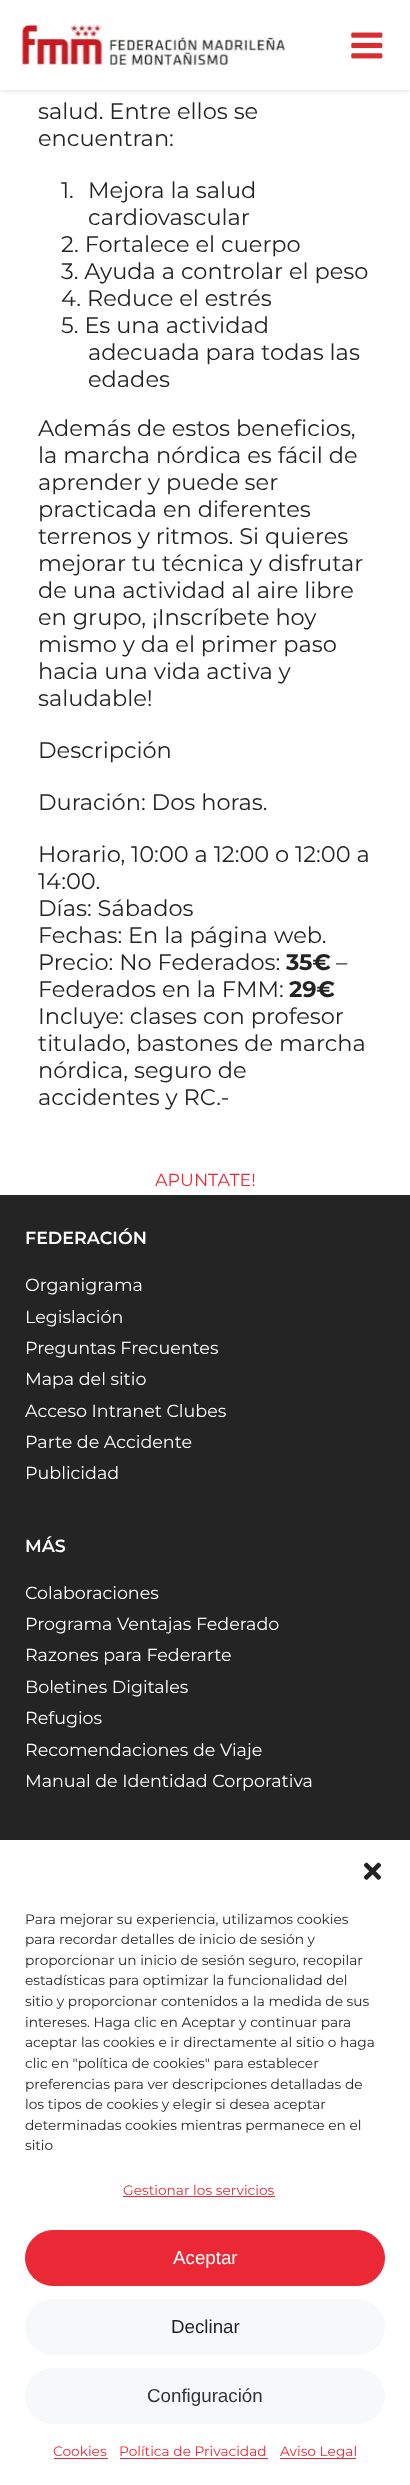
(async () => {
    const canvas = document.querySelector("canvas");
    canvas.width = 410;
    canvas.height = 2485;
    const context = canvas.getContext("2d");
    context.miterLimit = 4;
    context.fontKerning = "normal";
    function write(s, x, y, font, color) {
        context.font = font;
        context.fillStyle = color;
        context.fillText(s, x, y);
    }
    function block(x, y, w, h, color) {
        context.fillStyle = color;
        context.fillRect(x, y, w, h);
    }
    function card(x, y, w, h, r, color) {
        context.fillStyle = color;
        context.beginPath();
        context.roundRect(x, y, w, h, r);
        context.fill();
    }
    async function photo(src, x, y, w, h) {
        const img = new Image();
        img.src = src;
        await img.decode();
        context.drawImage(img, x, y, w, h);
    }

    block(0, 0, 410, 2485, "rgb(255, 255, 255)");
    context.fillStyle = "rgba(0, 0, 0, 0.12)";
    context.filter = "blur(2px)";
    context.beginPath();
    context.rect(0, 1, 410, 90);
    context.fill();
    context.filter = "none";
    block(0, 0, 410, 90, "rgb(255, 255, 255)");
    await photo("media/1.png", 22, 25, 263, 40);
    await photo("media/2.png", 351, 32, 32, 27);
    write("salud. Entre ellos se", 38, 119, "22.5px Montserrat", "rgb(36, 36, 36)");
    write("encuentran:", 38, 146, "22.5px Montserrat", "rgb(36, 36, 36)");
    write("1.", 61, 198, "22.5px Montserrat", "rgb(36, 36, 36)");
    write("Mejora la salud", 88, 198, "22.5px Montserrat", "rgb(36, 36, 36)");
    write("cardiovascular", 88, 225, "22.5px Montserrat", "rgb(36, 36, 36)");
    write("2. Fortalece el cuerpo", 61, 252, "22.5px Montserrat", "rgb(36, 36, 36)");
    write("3. Ayuda a controlar el peso", 61, 279, "22.5px Montserrat", "rgb(36, 36, 36)");
    write("4. Reduce el estrés", 61, 306, "22.5px Montserrat", "rgb(36, 36, 36)");
    write("5. Es una actividad", 61, 333, "22.5px Montserrat", "rgb(36, 36, 36)");
    write("adecuada para todas las", 88, 360, "22.5px Montserrat", "rgb(36, 36, 36)");
    write("edades", 88, 387, "22.5px Montserrat", "rgb(36, 36, 36)");
    write("Además de estos beneficios,", 38, 436, "22.5px Montserrat", "rgb(36, 36, 36)");
    write("la marcha nórdica es fácil de", 38, 463, "22.5px Montserrat", "rgb(36, 36, 36)");
    write("aprender y puede ser", 38, 490, "22.5px Montserrat", "rgb(36, 36, 36)");
    write("practicada en diferentes", 38, 517, "22.5px Montserrat", "rgb(36, 36, 36)");
    write("terrenos y ritmos. Si quieres", 38, 544, "22.5px Montserrat", "rgb(36, 36, 36)");
    write("mejorar tu técnica y disfrutar", 38, 571, "22.5px Montserrat", "rgb(36, 36, 36)");
    write("de una actividad al aire libre", 38, 598, "22.5px Montserrat", "rgb(36, 36, 36)");
    write("en grupo, ¡Inscríbete hoy", 38, 625, "22.5px Montserrat", "rgb(36, 36, 36)");
    write("mismo y da el primer paso", 38, 652, "22.5px Montserrat", "rgb(36, 36, 36)");
    write("hacia una vida activa y", 38, 679, "22.5px Montserrat", "rgb(36, 36, 36)");
    write("saludable!", 38, 706, "22.5px Montserrat", "rgb(36, 36, 36)");
    write("Descripción", 38, 758, "22.5px Montserrat", "rgb(36, 36, 36)");
    write("Duración: Dos horas.", 38, 810, "22.5px Montserrat", "rgb(36, 36, 36)");
    write("Horario, 10:00 a 12:00 o 12:00 a", 38, 862, "22.5px Montserrat", "rgb(36, 36, 36)");
    write("14:00.", 38, 889, "22.5px Montserrat", "rgb(36, 36, 36)");
    write("Días: Sábados", 38, 916, "22.5px Montserrat", "rgb(36, 36, 36)");
    write("Fechas: En la página web.", 38, 943, "22.5px Montserrat", "rgb(36, 36, 36)");
    write("Precio: No Federados:", 38, 970, "22.5px Montserrat", "rgb(36, 36, 36)");
    write("35€", 286, 970, "bold 22.5px Montserrat", "rgb(36, 36, 36)");
    write("–", 336, 970, "22.5px Montserrat", "rgb(36, 36, 36)");
    write("Federados en la FMM:", 38, 997, "22.5px Montserrat", "rgb(36, 36, 36)");
    write("29€", 289, 997, "bold 22.5px Montserrat", "rgb(36, 36, 36)");
    write("Incluye: clases con profesor", 38, 1024, "22.5px Montserrat", "rgb(36, 36, 36)");
    write("titulado, bastones de marcha", 38, 1051, "22.5px Montserrat", "rgb(36, 36, 36)");
    write("nórdica, seguro de", 38, 1078, "22.5px Montserrat", "rgb(36, 36, 36)");
    write("accidentes y RC.-", 38, 1105, "22.5px Montserrat", "rgb(36, 36, 36)");
    write("APUNTATE!", 155, 1186, "17.5px Montserrat", "rgb(235, 40, 54)");
    block(0, 1195, 410, 645, "rgb(36, 36, 36)");
    write("FEDERACIÓN", 25, 1244, "600 17.5px Montserrat", "rgb(255, 255, 255)");
    write("Organigrama", 25, 1291, "17.5px Montserrat", "rgb(255, 255, 255)");
    write("Legislación", 25, 1323, "17.5px Montserrat", "rgb(255, 255, 255)");
    write("Preguntas Frecuentes", 25, 1354, "17.5px Montserrat", "rgb(255, 255, 255)");
    write("Mapa del sitio", 25, 1385, "17.5px Montserrat", "rgb(255, 255, 255)");
    write("Acceso Intranet Clubes", 25, 1417, "17.5px Montserrat", "rgb(255, 255, 255)");
    write("Parte de Accidente", 25, 1448, "17.5px Montserrat", "rgb(255, 255, 255)");
    write("Publicidad", 25, 1479, "17.5px Montserrat", "rgb(255, 255, 255)");
    write("MÁS", 25, 1552, "600 17.5px Montserrat", "rgb(255, 255, 255)");
    write("Colaboraciones", 25, 1599, "17.5px Montserrat", "rgb(255, 255, 255)");
    write("Programa Ventajas Federado", 25, 1630, "17.5px Montserrat", "rgb(255, 255, 255)");
    write("Razones para Federarte", 25, 1661, "17.5px Montserrat", "rgb(255, 255, 255)");
    write("Boletines Digitales", 25, 1693, "17.5px Montserrat", "rgb(255, 255, 255)");
    write("Refugios", 25, 1724, "17.5px Montserrat", "rgb(255, 255, 255)");
    write("Recomendaciones de Viaje", 25, 1756, "17.5px Montserrat", "rgb(255, 255, 255)");
    write("Manual de Identidad Corporativa", 25, 1787, "17.5px Montserrat", "rgb(255, 255, 255)");
    await photo("media/3.png", 363, 1862, 19, 18);
    write("Para mejorar su experiencia, utilizamos cookies", 25, 1924, "13.75px Montserrat", "rgb(36, 36, 36)");
    write("para recordar detalles de inicio de sesión y", 25, 1944, "13.75px Montserrat", "rgb(36, 36, 36)");
    write("proporcionar un inicio de sesión seguro, recopilar", 25, 1965, "13.75px Montserrat", "rgb(36, 36, 36)");
    write("estadísticas para optimizar la funcionalidad del", 25, 1985, "13.75px Montserrat", "rgb(36, 36, 36)");
    write("sitio y proporcionar contenidos a la medida de sus", 25, 2006, "13.75px Montserrat", "rgb(36, 36, 36)");
    write("intereses. Haga clic en Aceptar y continuar para", 25, 2027, "13.75px Montserrat", "rgb(36, 36, 36)");
    write("aceptar las cookies e ir directamente al sitio o haga", 25, 2047, "13.75px Montserrat", "rgb(36, 36, 36)");
    write("clic en \"política de cookies\" para establecer", 25, 2068, "13.75px Montserrat", "rgb(36, 36, 36)");
    write("preferencias para ver descripciones detalladas de", 25, 2089, "13.75px Montserrat", "rgb(36, 36, 36)");
    write("los tipos de cookies y elegir si desea aceptar", 25, 2109, "13.75px Montserrat", "rgb(36, 36, 36)");
    write("determinadas cookies mientras permanece en el", 25, 2130, "13.75px Montserrat", "rgb(36, 36, 36)");
    write("sitio", 25, 2150, "13.75px Montserrat", "rgb(36, 36, 36)");
    write("Gestionar los servicios", 123, 2195, "13.75px Montserrat", "rgb(235, 40, 54)");
    block(123, 2196, 152, 1, "rgb(235, 40, 54)");
    context.beginPath();
    context.roundRect(25.5, 2230.5, 359, 55, 27.5);
    context.fill();
    context.strokeStyle = "rgb(235, 40, 54)";
    context.stroke();
    write("Aceptar", 173, 2264, "18.75px Liberation Sans", "rgb(255, 255, 255)");
    card(25, 2299, 360, 56, 28, "rgb(247, 248, 250)");
    write("Declinar", 171, 2333, "18.75px Liberation Sans", "rgb(36, 36, 36)");
    card(25, 2368, 360, 56, 28, "rgb(247, 248, 250)");
    write("Configuración", 147, 2402, "18.75px Liberation Sans", "rgb(51, 51, 51)");
    write("Cookies", 53, 2456, "13.75px Montserrat", "rgb(235, 40, 54)");
    block(54, 2458, 54, 1, "rgb(235, 40, 54)");
    write("Política de Privacidad", 119, 2456, "13.75px Montserrat", "rgb(235, 40, 54)");
    block(120, 2458, 148, 1, "rgb(235, 40, 54)");
    block(280, 2458, 76, 1, "rgb(235, 40, 54)");
    write("Aviso Legal", 280, 2456, "13.75px Montserrat", "rgb(235, 40, 54)");
})();
